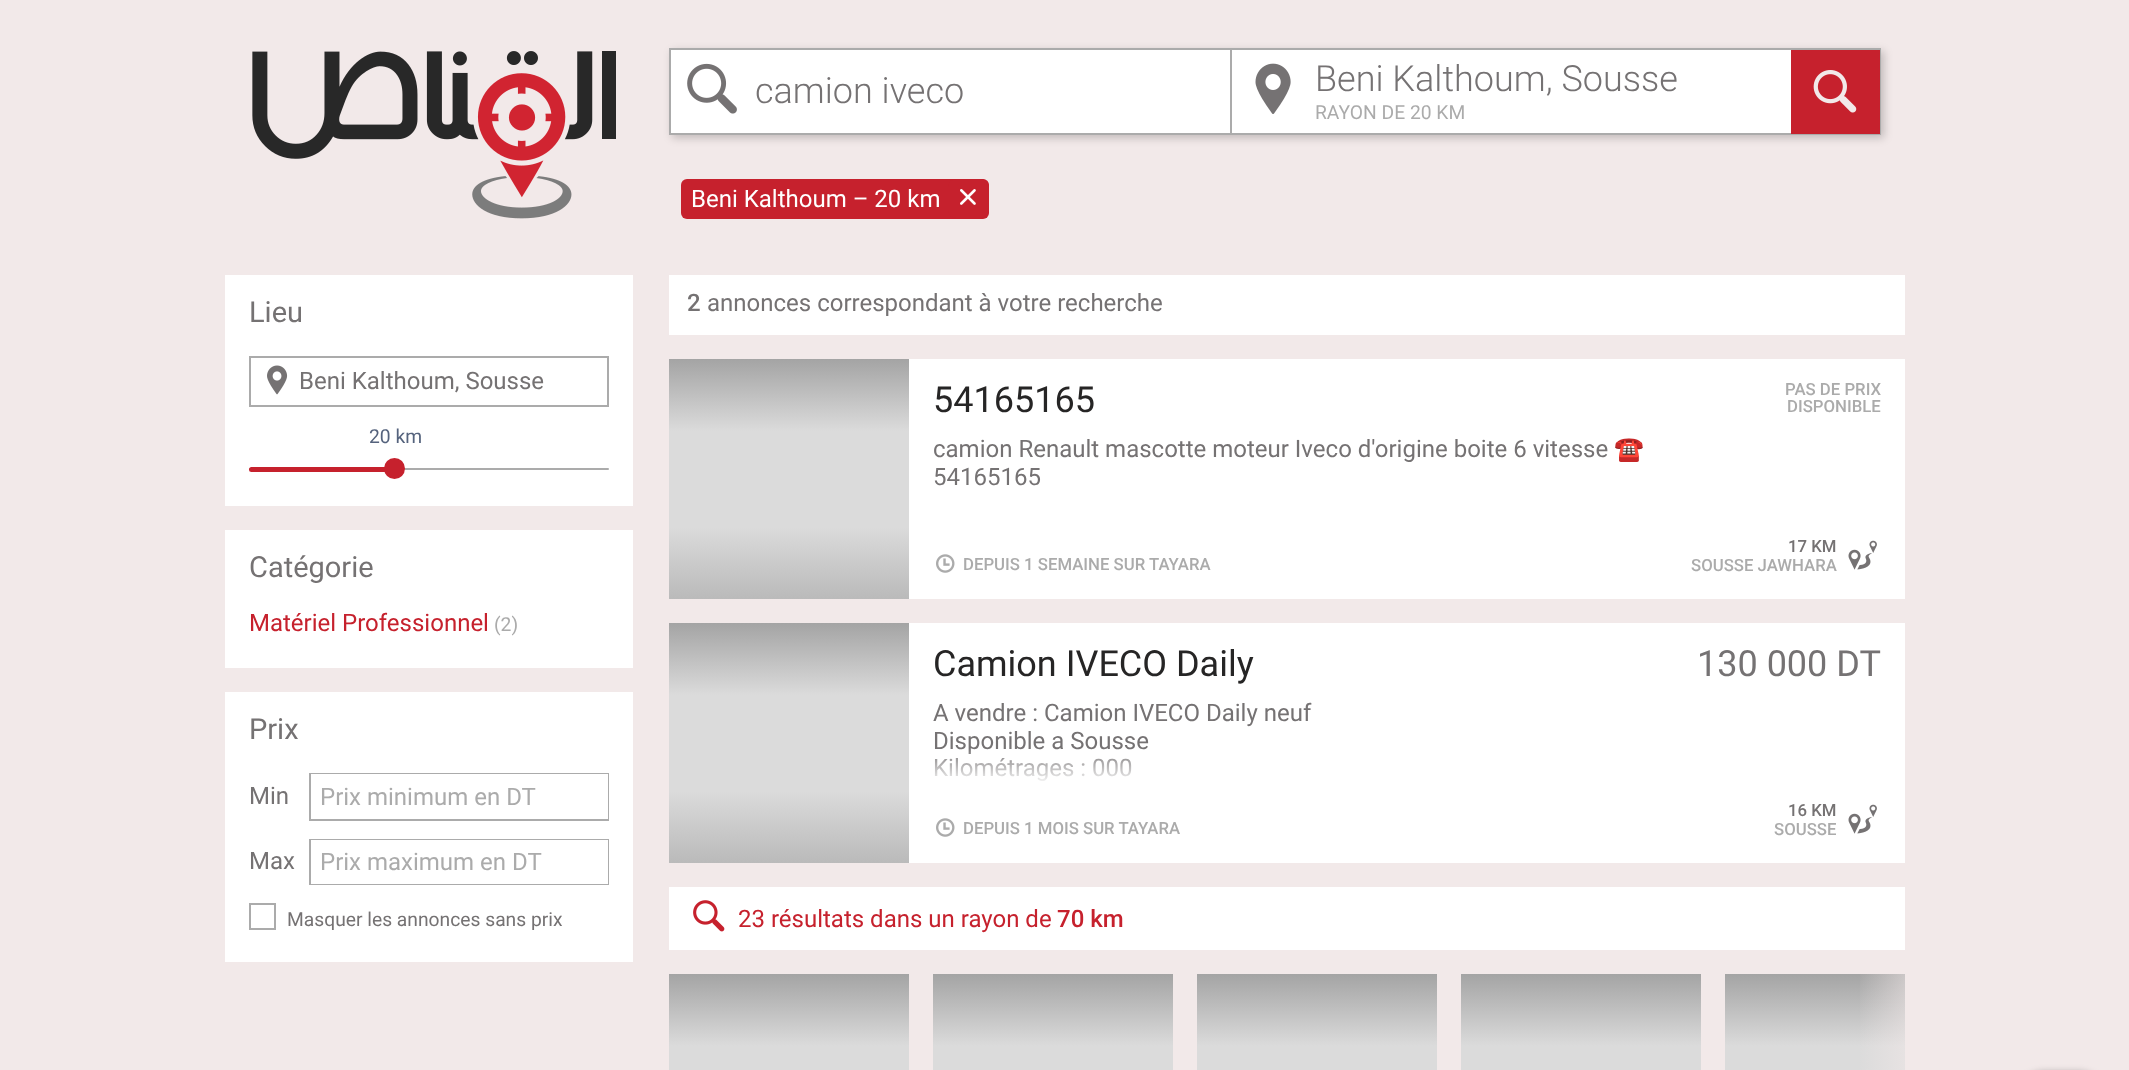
(async () => {
    const canvas = document.querySelector("canvas");
    canvas.width = 2129;
    canvas.height = 1070;
    const context = canvas.getContext("2d");
    context.miterLimit = 4;
    context.fontKerning = "normal";
    function write(s, x, y, font, color) {
        context.font = font;
        context.fillStyle = color;
        context.fillText(s, x, y);
    }
    function block(x, y, w, h, color) {
        context.fillStyle = color;
        context.fillRect(x, y, w, h);
    }
    function card(x, y, w, h, r, color) {
        context.fillStyle = color;
        context.beginPath();
        context.roundRect(x, y, w, h, r);
        context.fill();
    }
    async function photo(src, x, y, w, h) {
        const img = new Image();
        img.src = src;
        await img.decode();
        context.drawImage(img, x, y, w, h);
    }
    let gradient;

    block(0, 0, 2129, 1070, "rgb(242, 233, 233)");
    await photo("media/1.png", 252, 51, 364, 168);
    context.fillStyle = "rgba(0, 0, 0, 0.2)";
    context.filter = "blur(4.5px)";
    context.beginPath();
    context.rect(672, 51, 1212, 87);
    context.fill();
    context.filter = "none";
    block(671, 50, 1120, 83, "rgb(255, 255, 255)");
    context.strokeStyle = "rgb(171, 171, 171)";
    context.lineWidth = 2;
    context.strokeRect(670, 49, 1210, 85);
    await photo("media/2.png", 687, 63, 50, 51);
    write("camion iveco", 755, 103, "300 36px Roboto", "rgb(117, 114, 115)");
    block(1230, 50, 2, 84, "rgb(171, 171, 171)");
    await photo("media/3.png", 1255, 63, 36, 51);
    write("Beni Kalthoum, Sousse", 1315, 91, "300 36px Roboto", "rgb(117, 114, 115)");
    write("RAYON DE 20 KM", 1315, 119, "19.25px Roboto", "rgb(171, 171, 171)");
    block(1791, 50, 89, 84, "rgb(198, 33, 45)");
    await photo("media/4.png", 1813, 70, 44, 43);
    card(681, 179, 308, 40, 6, "rgb(198, 33, 45)");
    write("Beni Kalthoum – 20 km", 691, 207, "24px Roboto", "rgb(255, 255, 255)");
    card(948, 179, 41, 39, 8, "rgb(198, 33, 45)");
    await photo("media/5.png", 960, 189, 16, 16);
    block(225, 275, 408, 231, "rgb(255, 255, 255)");
    write("Lieu", 249, 322, "29px Roboto", "rgb(117, 114, 115)");
    context.strokeRect(250, 357, 358, 49);
    await photo("media/6.png", 267, 365, 21, 30);
    write("Beni Kalthoum, Sousse", 299, 389, "24px Roboto", "rgb(117, 114, 115)");
    write("20 km", 369, 443, "19.25px Roboto", "rgb(85, 99, 125)");
    card(249, 468, 360, 2, 1, "rgb(171, 171, 171)");
    card(249, 467, 146, 5, 2.5, "rgb(198, 33, 45)");
    context.beginPath();
    context.arc(394.5, 468.5, 10.5, 0, Math.PI * 2);
    context.fill();
    block(225, 530, 408, 138, "rgb(255, 255, 255)");
    write("Catégorie", 249, 577, "29px Roboto", "rgb(117, 114, 115)");
    write("Matériel Professionnel", 249, 631, "24px Roboto", "rgb(198, 33, 45)");
    write("(2)", 494, 631, "19.25px Roboto", "rgb(171, 171, 171)");
    block(225, 692, 408, 270, "rgb(255, 255, 255)");
    write("Prix", 249, 739, "29px Roboto", "rgb(117, 114, 115)");
    write("Min", 249, 804, "24px Roboto", "rgb(117, 114, 115)");
    context.strokeRect(310, 774, 298, 46);
    block(311, 774, 297, 45, "rgb(255, 255, 255)");
    write("Prix minimum en DT", 320, 805, "24px Roboto", "rgb(171, 171, 171)");
    write("Max", 249, 869, "24px Roboto", "rgb(117, 114, 115)");
    context.strokeRect(310, 840, 298, 44);
    block(311, 840, 297, 44, "rgb(255, 255, 255)");
    write("Prix maximum en DT", 320, 870, "24px Roboto", "rgb(171, 171, 171)");
    context.strokeRect(250, 904, 25, 25);
    write("Masquer les annonces sans prix", 287, 926, "19.25px Roboto", "rgb(117, 114, 115)");
    block(669, 275, 1236, 60, "rgb(255, 255, 255)");
    write("2", 687, 311, "500 24px Roboto", "rgb(117, 114, 115)");
    write("annonces correspondant à votre recherche", 707, 311, "24px Roboto", "rgb(117, 114, 115)");
    block(669, 431, 240, 96, "rgb(219, 219, 219)");
    gradient = context.createLinearGradient(789, 359, 789, 431);
    gradient.addColorStop(0, "rgb(164, 164, 164)");
    gradient.addColorStop(1, "rgb(219, 219, 219)");
    context.fillStyle = gradient;
    context.fillRect(669, 359, 240, 72);
    gradient = context.createLinearGradient(789, 599, 789, 527);
    gradient.addColorStop(0, "rgb(186, 186, 186)");
    gradient.addColorStop(1, "rgb(219, 219, 219)");
    context.fillStyle = gradient;
    context.fillRect(669, 527, 240, 72);
    block(909, 359, 996, 240, "rgb(255, 255, 255)");
    write("54165165", 933, 412, "36px Roboto", "rgb(38, 37, 37)");
    write("PAS DE PRIX", 1785, 395, "500 16.75px Roboto", "rgb(171, 171, 171)");
    write("DISPONIBLE", 1787, 412, "500 16.75px Roboto", "rgb(171, 171, 171)");
    write("camion Renault mascotte moteur Iveco d'origine boite 6 vitesse", 933, 457, "24px Roboto", "rgb(117, 114, 115)");
    context.save();
    context.beginPath();
    context.rect(933, 437, 756, 54);
    context.clip();
    write("☎️", 1614, 457, "24px Noto Color Emoji", "rgb(117, 114, 115)");
    context.restore();
    write("54165165", 933, 485, "24px Roboto", "rgb(117, 114, 115)");
    await photo("media/7.png", 936, 554, 19, 19);
    write("DEPUIS 1 SEMAINE SUR TAYARA", 963, 570, "500 16.75px Roboto", "rgb(171, 171, 171)");
    write("17 KM", 1788, 552, "500 16.75px Roboto", "rgb(117, 114, 115)");
    write("SOUSSE JAWHARA", 1691, 571, "500 16.75px Roboto", "rgb(171, 171, 171)");
    await photo("media/8.png", 1848, 540, 29, 30);
    block(669, 695, 240, 96, "rgb(219, 219, 219)");
    gradient = context.createLinearGradient(789, 623, 789, 695);
    gradient.addColorStop(0, "rgb(164, 164, 164)");
    gradient.addColorStop(1, "rgb(219, 219, 219)");
    context.fillStyle = gradient;
    context.fillRect(669, 623, 240, 72);
    gradient = context.createLinearGradient(789, 863, 789, 791);
    gradient.addColorStop(0, "rgb(186, 186, 186)");
    gradient.addColorStop(1, "rgb(219, 219, 219)");
    context.fillStyle = gradient;
    context.fillRect(669, 791, 240, 72);
    block(909, 623, 996, 240, "rgb(255, 255, 255)");
    write("Camion IVECO Daily", 933, 676, "36px Roboto", "rgb(38, 37, 37)");
    write("130 000 DT", 1697, 676, "36px Roboto", "rgb(117, 114, 115)");
    write("A vendre : Camion IVECO Daily neuf", 933, 721, "24px Roboto", "rgb(117, 114, 115)");
    write("Disponible a Sousse", 933, 749, "24px Roboto", "rgb(117, 114, 115)");
    write("Kilométrages : 000", 933, 776, "24px Roboto", "rgb(117, 114, 115)");
    gradient = context.createLinearGradient(1311, 748, 1311, 785);
    gradient.addColorStop(0, "rgba(255, 255, 255, 0)");
    gradient.addColorStop(1, "rgb(255, 255, 255)");
    context.fillStyle = gradient;
    context.fillRect(935, 749, 197, 32);
    await photo("media/7.png", 936, 818, 19, 19);
    write("DEPUIS 1 MOIS SUR TAYARA", 963, 834, "500 16.75px Roboto", "rgb(171, 171, 171)");
    write("16 KM", 1788, 816, "500 16.75px Roboto", "rgb(117, 114, 115)");
    write("SOUSSE", 1774, 835, "500 16.75px Roboto", "rgb(171, 171, 171)");
    await photo("media/8.png", 1848, 804, 29, 30);
    block(669, 887, 1236, 63, "rgb(255, 255, 255)");
    await photo("media/9.png", 693, 900, 32, 32);
    write("23 résultats dans un rayon de", 738, 927, "24px Roboto", "rgb(198, 33, 45)");
    write("70 km", 1057, 927, "500 24px Roboto", "rgb(198, 33, 45)");
    gradient = context.createLinearGradient(789, 974, 789, 1046);
    gradient.addColorStop(0, "rgb(164, 164, 164)");
    gradient.addColorStop(1, "rgb(219, 219, 219)");
    context.fillStyle = gradient;
    context.fillRect(669, 974, 240, 72);
    block(669, 1046, 240, 24, "rgb(219, 219, 219)");
    gradient = context.createLinearGradient(1053, 974, 1053, 1046);
    gradient.addColorStop(0, "rgb(164, 164, 164)");
    gradient.addColorStop(1, "rgb(219, 219, 219)");
    context.fillStyle = gradient;
    context.fillRect(933, 974, 240, 72);
    block(933, 1046, 240, 24, "rgb(219, 219, 219)");
    gradient = context.createLinearGradient(1317, 974, 1317, 1046);
    gradient.addColorStop(0, "rgb(164, 164, 164)");
    gradient.addColorStop(1, "rgb(219, 219, 219)");
    context.fillStyle = gradient;
    context.fillRect(1197, 974, 240, 72);
    block(1197, 1046, 240, 24, "rgb(219, 219, 219)");
    gradient = context.createLinearGradient(1581, 974, 1581, 1046);
    gradient.addColorStop(0, "rgb(164, 164, 164)");
    gradient.addColorStop(1, "rgb(219, 219, 219)");
    context.fillStyle = gradient;
    context.fillRect(1461, 974, 240, 72);
    block(1461, 1046, 240, 24, "rgb(219, 219, 219)");
    gradient = context.createLinearGradient(1845, 974, 1845, 1046);
    gradient.addColorStop(0, "rgb(164, 164, 164)");
    gradient.addColorStop(1, "rgb(219, 219, 219)");
    context.fillStyle = gradient;
    context.fillRect(1725, 974, 180, 72);
    block(1725, 1046, 180, 24, "rgb(219, 219, 219)");
    gradient = context.createLinearGradient(1905, 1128, 1857, 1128);
    gradient.addColorStop(0, "rgba(242, 233, 233, 0.5)");
    gradient.addColorStop(1, "rgba(242, 233, 233, 0)");
    context.fillStyle = gradient;
    context.fillRect(1860, 974, 45, 96);
    context.fillStyle = "rgba(0, 0, 0, 0.5)";
    context.filter = "blur(4px)";
    context.beginPath();
    context.roundRect(2018, 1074, 87, 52, 43.5);
    context.fill();
    context.filter = "none";
})();
